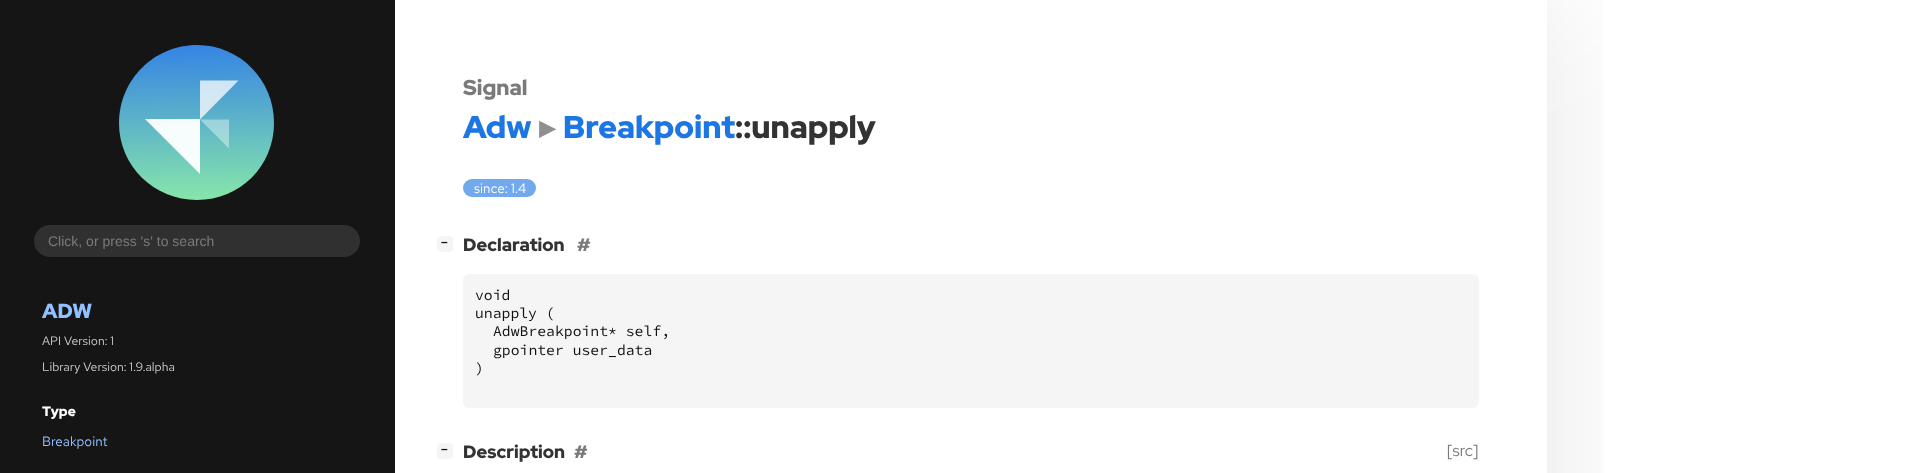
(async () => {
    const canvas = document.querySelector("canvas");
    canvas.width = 1910;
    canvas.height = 473;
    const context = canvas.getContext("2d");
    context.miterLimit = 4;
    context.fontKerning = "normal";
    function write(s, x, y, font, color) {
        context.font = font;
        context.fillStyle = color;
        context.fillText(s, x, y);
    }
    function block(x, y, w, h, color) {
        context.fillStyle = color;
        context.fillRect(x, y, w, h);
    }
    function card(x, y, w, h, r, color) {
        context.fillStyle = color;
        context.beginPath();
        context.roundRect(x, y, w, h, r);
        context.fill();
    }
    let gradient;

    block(0, 0, 1910, 473, "rgb(255, 255, 255)");
    context.save();
    context.beginPath();
    context.rect(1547, 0, 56, 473);
    context.clip();
    context.fillStyle = "rgba(0, 0, 0, 0.1)";
    context.filter = "blur(67px)";
    context.beginPath();
    context.rect(395, 0, 1152, 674);
    context.fill();
    context.filter = "none";
    context.restore();
    block(0, 0, 395, 473, "rgb(21, 21, 21)");
    gradient = context.createLinearGradient(200, 216, 197, 45);
    gradient.addColorStop(0, "rgb(143, 240, 164)");
    gradient.addColorStop(1, "rgb(53, 132, 228)");
    context.fillStyle = gradient;
    context.beginPath();
    context.moveTo(119, 123);
    context.bezierCurveTo(119, 80, 154, 45, 197, 45);
    context.bezierCurveTo(240, 45, 274, 80, 274, 123);
    context.bezierCurveTo(274, 166, 240, 200, 197, 200);
    context.bezierCurveTo(154, 200, 119, 166, 119, 123);
    context.closePath();
    context.fill();
    context.fillStyle = "rgba(255, 255, 255, 0.95)";
    context.beginPath();
    context.moveTo(145, 119);
    context.lineTo(200, 119);
    context.lineTo(200, 174);
    context.closePath();
    context.fill();
    context.fillStyle = "rgba(255, 255, 255, 0.75)";
    context.beginPath();
    context.moveTo(238.5, 80.5);
    context.lineTo(200, 80.5);
    context.lineTo(200, 119.5);
    context.closePath();
    context.fill();
    context.fillStyle = "rgba(255, 255, 255, 0.4)";
    context.beginPath();
    context.moveTo(200, 119.5);
    context.lineTo(229, 119.5);
    context.lineTo(229, 148.5);
    context.closePath();
    context.fill();
    card(34, 225, 326, 32, 16, "rgb(48, 48, 48)");
    write("Click, or press 's' to search", 48, 246, "14px Liberation Sans", "rgb(122, 122, 122)");
    write("ADW", 42, 318, "900 20.5px Red Hat Display", "rgb(144, 194, 255)");
    write("API Version: 1", 42, 345, "12.25px Red Hat Text", "rgb(204, 204, 204)");
    write("Library Version: 1.9.alpha", 42, 371, "12.25px Red Hat Text", "rgb(204, 204, 204)");
    write("Type", 42, 416, "900 13.5px Red Hat Display", "rgb(255, 255, 255)");
    write("Breakpoint", 42, 446, "13.5px Red Hat Text", "rgb(144, 194, 255)");
    write("Signal", 463, 95, "900 21.5px Red Hat Display", "rgb(122, 122, 122)");
    write("Adw", 463, 138, "900 31.5px Red Hat Display", "rgb(28, 118, 228)");
    write("▸", 539, 138, "bold 31.5px DejaVu Sans", "rgb(143, 143, 143)");
    write("Breakpoint", 563, 138, "900 31.5px Red Hat Display", "rgb(28, 118, 228)");
    write("::unapply", 735, 138, "900 31.5px Red Hat Display", "rgb(51, 51, 51)");
    card(463, 179, 73, 18, 9, "rgb(114, 169, 236)");
    write("since: 1.4", 474, 193, "13.5px Red Hat Text", "rgb(255, 255, 255)");
    card(437, 236, 16, 16, 4, "rgb(245, 245, 245)");
    write("−", 441, 246, "bold 11px DejaVu Sans Mono", "rgb(17, 17, 17)");
    write("Declaration", 463, 251, "900 18px Red Hat Display", "rgb(51, 51, 51)");
    write("#", 577, 251, "900 18px Red Hat Display", "rgb(122, 122, 122)");
    card(463, 274, 1016, 134, 6, "rgb(245, 245, 245)");
    write("void", 475, 300, "14.75px Source Code Pro", "rgb(17, 17, 17)");
    write("unapply (", 475, 318, "14.75px Source Code Pro", "rgb(17, 17, 17)");
    write("AdwBreakpoint* self,", 493, 336, "14.75px Source Code Pro", "rgb(17, 17, 17)");
    write("gpointer user_data", 493, 355, "14.75px Source Code Pro", "rgb(17, 17, 17)");
    write(")", 475, 373, "14.75px Source Code Pro", "rgb(17, 17, 17)");
    card(437, 443, 16, 16, 4, "rgb(245, 245, 245)");
    write("−", 441, 453, "bold 11px DejaVu Sans Mono", "rgb(17, 17, 17)");
    write("Description", 463, 458, "900 18px Red Hat Display", "rgb(51, 51, 51)");
    write("#", 574, 458, "900 18px Red Hat Display", "rgb(122, 122, 122)");
    write("[src]", 1447, 456, "16px Red Hat Display", "rgb(122, 122, 122)");
})();
